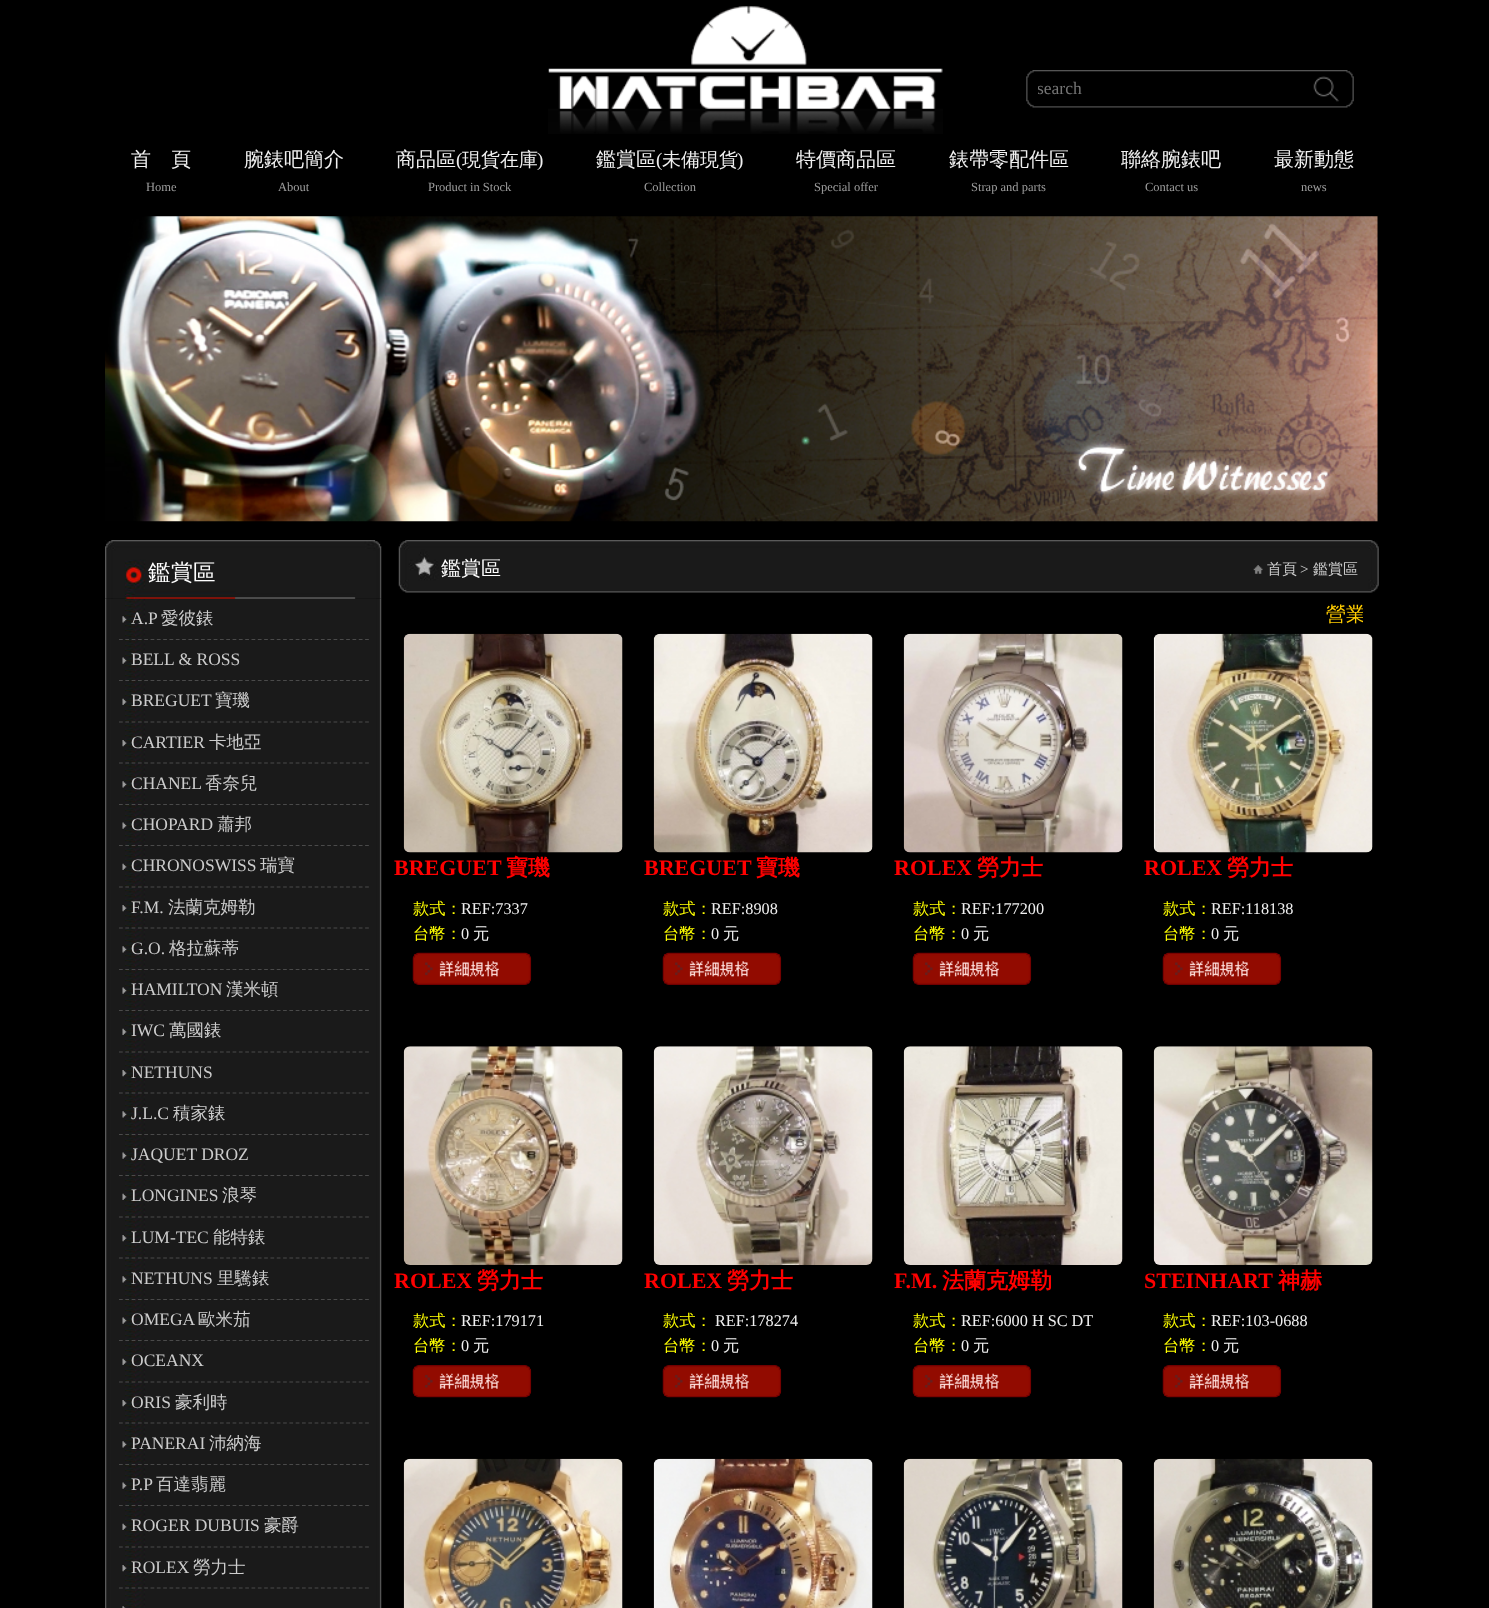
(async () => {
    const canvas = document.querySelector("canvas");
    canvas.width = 1489;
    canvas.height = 1608;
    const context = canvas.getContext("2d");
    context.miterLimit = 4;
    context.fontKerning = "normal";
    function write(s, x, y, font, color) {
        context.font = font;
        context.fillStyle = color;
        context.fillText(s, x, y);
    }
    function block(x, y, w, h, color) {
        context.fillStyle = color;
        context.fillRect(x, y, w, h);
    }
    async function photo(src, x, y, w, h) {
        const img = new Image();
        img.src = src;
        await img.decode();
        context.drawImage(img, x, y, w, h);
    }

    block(0, 0, 1489, 1608, "rgb(0, 0, 0)");
    await photo("media/1.png", 548, 6, 395, 128);
    await photo("media/2.png", 1026, 70, 284, 38);
    context.save();
    context.beginPath();
    context.rect(1038, 79, 262, 20);
    context.clip();
    write("search", 1037, 94, "17.5px Liberation Serif", "rgb(117, 117, 117)");
    context.restore();
    await photo("media/3.png", 1310, 70, 44, 38);
    write("首　頁", 131, 166, "500 20px WenQuanYi Zen Hei", "rgb(240, 240, 240)");
    write("Home", 146, 191, "12.5px Liberation Serif", "rgb(158, 158, 158)");
    write("腕錶吧簡介", 244, 166, "500 20px WenQuanYi Zen Hei", "rgb(240, 240, 240)");
    write("About", 278, 191, "12.5px Liberation Serif", "rgb(158, 158, 158)");
    write("商品區", 396, 166, "500 20px WenQuanYi Zen Hei", "rgb(240, 240, 240)");
    write("(", 456, 166, "19px Liberation Serif", "rgb(240, 240, 240)");
    write("現貨在庫", 462, 166, "500 19px WenQuanYi Zen Hei", "rgb(240, 240, 240)");
    write(")", 537, 166, "19px Liberation Serif", "rgb(240, 240, 240)");
    write("Product in Stock", 428, 191, "12.5px Liberation Serif", "rgb(158, 158, 158)");
    write("鑑賞區", 596, 166, "500 20px WenQuanYi Zen Hei", "rgb(240, 240, 240)");
    write("(", 656, 166, "19px Liberation Serif", "rgb(240, 240, 240)");
    write("未備現貨", 662, 166, "500 19px WenQuanYi Zen Hei", "rgb(240, 240, 240)");
    write(")", 737, 166, "19px Liberation Serif", "rgb(240, 240, 240)");
    write("Collection", 644, 191, "12.5px Liberation Serif", "rgb(158, 158, 158)");
    write("特價商品區", 796, 166, "500 20px WenQuanYi Zen Hei", "rgb(240, 240, 240)");
    write("Special offer", 814, 191, "12.5px Liberation Serif", "rgb(158, 158, 158)");
    write("錶帶零配件區", 949, 166, "500 20px WenQuanYi Zen Hei", "rgb(240, 240, 240)");
    write("Strap and parts", 971, 191, "12.5px Liberation Serif", "rgb(158, 158, 158)");
    write("聯絡腕錶吧", 1121, 166, "500 20px WenQuanYi Zen Hei", "rgb(240, 240, 240)");
    write("Contact us", 1145, 191, "12.5px Liberation Serif", "rgb(158, 158, 158)");
    write("最新動態", 1274, 166, "500 20px WenQuanYi Zen Hei", "rgb(240, 240, 240)");
    write("news", 1301, 191, "12.5px Liberation Serif", "rgb(158, 158, 158)");
    await photo("media/4.png", 105, 216, 1273, 306);
    await photo("media/5.png", 105, 540, 277, 59);
    write("鑑賞區", 148, 580, "500 22.5px WenQuanYi Zen Hei", "rgb(255, 255, 255)");
    await photo("media/6.png", 105, 598, 277, 1010);
    await photo("media/7.png", 122, 616, 5, 7);
    context.beginPath();
    context.moveTo(119, 639.5);
    context.lineTo(369, 639.5);
    context.strokeStyle = "rgb(74, 74, 74)";
    context.lineWidth = 1.2;
    context.setLineDash([3.75, 2.56]);
    context.stroke();
    write("A.P", 131, 624, "17.5px Liberation Serif", "rgb(204, 204, 204)");
    write("愛彼錶", 161, 624, "500 17.5px WenQuanYi Zen Hei", "rgb(204, 204, 204)");
    await photo("media/8.png", 122, 657, 5, 7);
    context.beginPath();
    context.moveTo(119, 680.5);
    context.lineTo(369, 680.5);
    context.stroke();
    write("BELL & ROSS", 131, 665, "17.5px Liberation Serif", "rgb(204, 204, 204)");
    await photo("media/9.png", 122, 698, 5, 7);
    context.beginPath();
    context.moveTo(119, 722);
    context.lineTo(369, 722);
    context.stroke();
    write("BREGUET", 131, 706, "17.5px Liberation Serif", "rgb(204, 204, 204)");
    write("寶璣", 215, 706, "500 17.5px WenQuanYi Zen Hei", "rgb(204, 204, 204)");
    await photo("media/10.png", 122, 740, 5, 7);
    context.beginPath();
    context.moveTo(119, 763);
    context.lineTo(369, 763);
    context.stroke();
    write("CARTIER", 131, 748, "17.5px Liberation Serif", "rgb(204, 204, 204)");
    write("卡地亞", 209, 748, "500 17.5px WenQuanYi Zen Hei", "rgb(204, 204, 204)");
    await photo("media/11.png", 122, 781, 5, 7);
    context.beginPath();
    context.moveTo(119, 804.5);
    context.lineTo(369, 804.5);
    context.stroke();
    write("CHANEL", 131, 789, "17.5px Liberation Serif", "rgb(204, 204, 204)");
    write("香奈兒", 205, 789, "500 17.5px WenQuanYi Zen Hei", "rgb(204, 204, 204)");
    await photo("media/12.png", 122, 822, 5, 7);
    context.beginPath();
    context.moveTo(119, 845.5);
    context.lineTo(369, 845.5);
    context.stroke();
    write("CHOPARD", 131, 830, "17.5px Liberation Serif", "rgb(204, 204, 204)");
    write("蕭邦", 217, 830, "500 17.5px WenQuanYi Zen Hei", "rgb(204, 204, 204)");
    await photo("media/13.png", 122, 863, 5, 7);
    context.beginPath();
    context.moveTo(119, 887);
    context.lineTo(369, 887);
    context.stroke();
    write("CHRONOSWISS", 131, 871, "17.5px Liberation Serif", "rgb(204, 204, 204)");
    write("瑞寶", 260, 871, "500 17.5px WenQuanYi Zen Hei", "rgb(204, 204, 204)");
    await photo("media/10.png", 122, 905, 5, 7);
    context.beginPath();
    context.moveTo(119, 928);
    context.lineTo(369, 928);
    context.stroke();
    write("F.M.", 131, 913, "17.5px Liberation Serif", "rgb(204, 204, 204)");
    write("法蘭克姆勒", 168, 913, "500 17.5px WenQuanYi Zen Hei", "rgb(204, 204, 204)");
    await photo("media/14.png", 122, 946, 5, 7);
    context.beginPath();
    context.moveTo(119, 969.5);
    context.lineTo(369, 969.5);
    context.stroke();
    write("G.O.", 131, 954, "17.5px Liberation Serif", "rgb(204, 204, 204)");
    write("格拉蘇蒂", 169, 954, "500 17.5px WenQuanYi Zen Hei", "rgb(204, 204, 204)");
    await photo("media/12.png", 122, 987, 5, 7);
    context.beginPath();
    context.moveTo(119, 1010.5);
    context.lineTo(369, 1010.5);
    context.stroke();
    write("HAMILTON", 131, 995, "17.5px Liberation Serif", "rgb(204, 204, 204)");
    write("漢米頓", 226, 995, "500 17.5px WenQuanYi Zen Hei", "rgb(204, 204, 204)");
    await photo("media/9.png", 122, 1028, 5, 7);
    context.beginPath();
    context.moveTo(119, 1052);
    context.lineTo(369, 1052);
    context.stroke();
    write("IWC", 131, 1036, "17.5px Liberation Serif", "rgb(204, 204, 204)");
    write("萬國錶", 169, 1036, "500 17.5px WenQuanYi Zen Hei", "rgb(204, 204, 204)");
    await photo("media/10.png", 122, 1070, 5, 7);
    context.beginPath();
    context.moveTo(119, 1093);
    context.lineTo(369, 1093);
    context.stroke();
    write("NETHUNS", 131, 1078, "17.5px Liberation Serif", "rgb(204, 204, 204)");
    await photo("media/7.png", 122, 1111, 5, 7);
    context.beginPath();
    context.moveTo(119, 1134.5);
    context.lineTo(369, 1134.5);
    context.stroke();
    write("J.L.C", 131, 1119, "17.5px Liberation Serif", "rgb(204, 204, 204)");
    write("積家錶", 173, 1119, "500 17.5px WenQuanYi Zen Hei", "rgb(204, 204, 204)");
    await photo("media/8.png", 122, 1152, 5, 7);
    context.beginPath();
    context.moveTo(119, 1175.5);
    context.lineTo(369, 1175.5);
    context.stroke();
    write("JAQUET DROZ", 131, 1160, "17.5px Liberation Serif", "rgb(204, 204, 204)");
    await photo("media/9.png", 122, 1193, 5, 7);
    context.beginPath();
    context.moveTo(119, 1217);
    context.lineTo(369, 1217);
    context.stroke();
    write("LONGINES", 131, 1201, "17.5px Liberation Serif", "rgb(204, 204, 204)");
    write("浪琴", 222, 1201, "500 17.5px WenQuanYi Zen Hei", "rgb(204, 204, 204)");
    await photo("media/10.png", 122, 1235, 5, 7);
    context.beginPath();
    context.moveTo(119, 1258);
    context.lineTo(369, 1258);
    context.stroke();
    write("LUM-TEC", 131, 1243, "17.5px Liberation Serif", "rgb(204, 204, 204)");
    write("能特錶", 213, 1243, "500 17.5px WenQuanYi Zen Hei", "rgb(204, 204, 204)");
    await photo("media/14.png", 122, 1276, 5, 7);
    context.beginPath();
    context.moveTo(119, 1299.5);
    context.lineTo(369, 1299.5);
    context.stroke();
    write("NETHUNS", 131, 1284, "17.5px Liberation Serif", "rgb(204, 204, 204)");
    write("里驣錶", 217, 1284, "500 17.5px WenQuanYi Zen Hei", "rgb(204, 204, 204)");
    await photo("media/12.png", 122, 1317, 5, 7);
    context.beginPath();
    context.moveTo(119, 1340.5);
    context.lineTo(369, 1340.5);
    context.stroke();
    write("OMEGA", 131, 1325, "17.5px Liberation Serif", "rgb(204, 204, 204)");
    write("歐米茄", 198, 1325, "500 17.5px WenQuanYi Zen Hei", "rgb(204, 204, 204)");
    await photo("media/13.png", 122, 1358, 5, 7);
    context.beginPath();
    context.moveTo(119, 1382);
    context.lineTo(369, 1382);
    context.stroke();
    write("OCEANX", 131, 1366, "17.5px Liberation Serif", "rgb(204, 204, 204)");
    await photo("media/15.png", 122, 1400, 5, 7);
    context.beginPath();
    context.moveTo(119, 1423);
    context.lineTo(369, 1423);
    context.stroke();
    write("ORIS", 131, 1408, "17.5px Liberation Serif", "rgb(204, 204, 204)");
    write("豪利時", 175, 1408, "500 17.5px WenQuanYi Zen Hei", "rgb(204, 204, 204)");
    await photo("media/14.png", 122, 1441, 5, 7);
    context.beginPath();
    context.moveTo(119, 1464.5);
    context.lineTo(369, 1464.5);
    context.stroke();
    write("PANERAI", 131, 1449, "17.5px Liberation Serif", "rgb(204, 204, 204)");
    write("沛納海", 209, 1449, "500 17.5px WenQuanYi Zen Hei", "rgb(204, 204, 204)");
    await photo("media/12.png", 122, 1482, 5, 7);
    context.beginPath();
    context.moveTo(119, 1505.5);
    context.lineTo(369, 1505.5);
    context.stroke();
    write("P.P", 131, 1490, "17.5px Liberation Serif", "rgb(204, 204, 204)");
    write("百達翡麗", 156, 1490, "500 17.5px WenQuanYi Zen Hei", "rgb(204, 204, 204)");
    await photo("media/13.png", 122, 1523, 5, 7);
    context.beginPath();
    context.moveTo(119, 1547);
    context.lineTo(369, 1547);
    context.stroke();
    write("ROGER DUBUIS", 131, 1531, "17.5px Liberation Serif", "rgb(204, 204, 204)");
    write("豪爵", 264, 1531, "500 17.5px WenQuanYi Zen Hei", "rgb(204, 204, 204)");
    await photo("media/15.png", 122, 1565, 5, 7);
    context.beginPath();
    context.moveTo(119, 1588);
    context.lineTo(369, 1588);
    context.stroke();
    write("ROLEX", 131, 1573, "17.5px Liberation Serif", "rgb(204, 204, 204)");
    write("勞力士", 193, 1573, "500 17.5px WenQuanYi Zen Hei", "rgb(204, 204, 204)");
    await photo("media/16.png", 122, 1606, 4, 2);
    await photo("media/17.png", 398, 540, 981, 53);
    write("鑑賞區", 441, 575, "500 20px WenQuanYi Zen Hei", "rgb(255, 255, 255)");
    await photo("media/18.png", 1253, 565, 10, 9);
    write("首頁", 1267, 574, "500 15px WenQuanYi Zen Hei", "rgb(204, 204, 204)");
    write(">", 1300, 574, "15px Liberation Serif", "rgb(204, 204, 204)");
    write("鑑賞區", 1313, 574, "500 15px WenQuanYi Zen Hei", "rgb(204, 204, 204)");
    context.save();
    context.beginPath();
    context.rect(400, 596, 963, 38);
    context.clip();
    write("營業", 1326, 621, "500 20px WenQuanYi Zen Hei", "rgb(255, 204, 0)");
    context.restore();
    await photo("media/19.png", 403, 633, 220, 220);
    write("BREGUET", 394, 875, "bold 22px Liberation Serif", "rgb(255, 0, 0)");
    write("寶璣", 506, 875, "bold 22px WenQuanYi Zen Hei", "rgb(255, 0, 0)");
    write("款式：", 413, 914, "500 16.25px WenQuanYi Zen Hei", "rgb(255, 255, 0)");
    write("REF:7337", 461, 914, "16.25px Liberation Serif", "rgb(240, 240, 240)");
    write("台幣：", 413, 939, "500 16.25px WenQuanYi Zen Hei", "rgb(255, 255, 0)");
    write("0", 461, 939, "16.25px Liberation Serif", "rgb(240, 240, 240)");
    write("元", 473, 939, "500 16.25px WenQuanYi Zen Hei", "rgb(240, 240, 240)");
    await photo("media/20.png", 412, 952, 120, 33);
    await photo("media/21.png", 653, 633, 220, 220);
    write("BREGUET", 644, 875, "bold 22px Liberation Serif", "rgb(255, 0, 0)");
    write("寶璣", 756, 875, "bold 22px WenQuanYi Zen Hei", "rgb(255, 0, 0)");
    write("款式：", 663, 914, "500 16.25px WenQuanYi Zen Hei", "rgb(255, 255, 0)");
    write("REF:8908", 711, 914, "16.25px Liberation Serif", "rgb(240, 240, 240)");
    write("台幣：", 663, 939, "500 16.25px WenQuanYi Zen Hei", "rgb(255, 255, 0)");
    write("0", 711, 939, "16.25px Liberation Serif", "rgb(240, 240, 240)");
    write("元", 723, 939, "500 16.25px WenQuanYi Zen Hei", "rgb(240, 240, 240)");
    await photo("media/22.png", 662, 952, 120, 33);
    await photo("media/23.png", 903, 633, 220, 220);
    write("ROLEX", 894, 875, "bold 22px Liberation Serif", "rgb(255, 0, 0)");
    write("勞力士", 977, 875, "bold 22px WenQuanYi Zen Hei", "rgb(255, 0, 0)");
    write("款式：", 913, 914, "500 16.25px WenQuanYi Zen Hei", "rgb(255, 255, 0)");
    write("REF:177200", 961, 914, "16.25px Liberation Serif", "rgb(240, 240, 240)");
    write("台幣：", 913, 939, "500 16.25px WenQuanYi Zen Hei", "rgb(255, 255, 0)");
    write("0", 961, 939, "16.25px Liberation Serif", "rgb(240, 240, 240)");
    write("元", 973, 939, "500 16.25px WenQuanYi Zen Hei", "rgb(240, 240, 240)");
    await photo("media/22.png", 912, 952, 120, 33);
    await photo("media/24.png", 1153, 633, 220, 220);
    write("ROLEX", 1144, 875, "bold 22px Liberation Serif", "rgb(255, 0, 0)");
    write("勞力士", 1227, 875, "bold 22px WenQuanYi Zen Hei", "rgb(255, 0, 0)");
    write("款式：", 1163, 914, "500 16.25px WenQuanYi Zen Hei", "rgb(255, 255, 0)");
    write("REF:118138", 1211, 914, "16.25px Liberation Serif", "rgb(240, 240, 240)");
    write("台幣：", 1163, 939, "500 16.25px WenQuanYi Zen Hei", "rgb(255, 255, 0)");
    write("0", 1211, 939, "16.25px Liberation Serif", "rgb(240, 240, 240)");
    write("元", 1223, 939, "500 16.25px WenQuanYi Zen Hei", "rgb(240, 240, 240)");
    await photo("media/20.png", 1162, 952, 120, 33);
    await photo("media/25.png", 403, 1046, 220, 219);
    write("ROLEX", 394, 1288, "bold 22px Liberation Serif", "rgb(255, 0, 0)");
    write("勞力士", 477, 1288, "bold 22px WenQuanYi Zen Hei", "rgb(255, 0, 0)");
    write("款式：", 413, 1326, "500 16.25px WenQuanYi Zen Hei", "rgb(255, 255, 0)");
    write("REF:179171", 461, 1326, "16.25px Liberation Serif", "rgb(240, 240, 240)");
    write("台幣：", 413, 1351, "500 16.25px WenQuanYi Zen Hei", "rgb(255, 255, 0)");
    write("0", 461, 1351, "16.25px Liberation Serif", "rgb(240, 240, 240)");
    write("元", 473, 1351, "500 16.25px WenQuanYi Zen Hei", "rgb(240, 240, 240)");
    await photo("media/26.png", 412, 1365, 120, 33);
    await photo("media/27.png", 653, 1046, 220, 219);
    write("ROLEX", 644, 1288, "bold 22px Liberation Serif", "rgb(255, 0, 0)");
    write("勞力士", 727, 1288, "bold 22px WenQuanYi Zen Hei", "rgb(255, 0, 0)");
    write("款式：", 663, 1326, "500 16.25px WenQuanYi Zen Hei", "rgb(255, 255, 0)");
    write("REF:178274", 715, 1326, "16.25px Liberation Serif", "rgb(240, 240, 240)");
    write("台幣：", 663, 1351, "500 16.25px WenQuanYi Zen Hei", "rgb(255, 255, 0)");
    write("0", 711, 1351, "16.25px Liberation Serif", "rgb(240, 240, 240)");
    write("元", 723, 1351, "500 16.25px WenQuanYi Zen Hei", "rgb(240, 240, 240)");
    await photo("media/28.png", 662, 1365, 120, 33);
    await photo("media/29.png", 903, 1046, 220, 219);
    write("F.M.", 894, 1288, "bold 22px Liberation Serif", "rgb(255, 0, 0)");
    write("法蘭克姆勒", 942, 1288, "bold 22px WenQuanYi Zen Hei", "rgb(255, 0, 0)");
    write("款式：", 913, 1326, "500 16.25px WenQuanYi Zen Hei", "rgb(255, 255, 0)");
    write("REF:6000 H SC DT", 961, 1326, "16.25px Liberation Serif", "rgb(240, 240, 240)");
    write("台幣：", 913, 1351, "500 16.25px WenQuanYi Zen Hei", "rgb(255, 255, 0)");
    write("0", 961, 1351, "16.25px Liberation Serif", "rgb(240, 240, 240)");
    write("元", 973, 1351, "500 16.25px WenQuanYi Zen Hei", "rgb(240, 240, 240)");
    await photo("media/30.png", 912, 1365, 120, 33);
    await photo("media/31.png", 1153, 1046, 220, 219);
    write("STEINHART", 1144, 1288, "bold 22px Liberation Serif", "rgb(255, 0, 0)");
    write("神赫", 1278, 1288, "bold 22px WenQuanYi Zen Hei", "rgb(255, 0, 0)");
    write("款式：", 1163, 1326, "500 16.25px WenQuanYi Zen Hei", "rgb(255, 255, 0)");
    write("REF:103-0688", 1211, 1326, "16.25px Liberation Serif", "rgb(240, 240, 240)");
    write("台幣：", 1163, 1351, "500 16.25px WenQuanYi Zen Hei", "rgb(255, 255, 0)");
    write("0", 1211, 1351, "16.25px Liberation Serif", "rgb(240, 240, 240)");
    write("元", 1223, 1351, "500 16.25px WenQuanYi Zen Hei", "rgb(240, 240, 240)");
    await photo("media/26.png", 1162, 1365, 120, 33);
    await photo("media/32.png", 403, 1458, 220, 150);
    await photo("media/33.png", 653, 1458, 220, 150);
    await photo("media/34.png", 903, 1458, 220, 150);
    await photo("media/35.png", 1153, 1458, 220, 150);
})();
